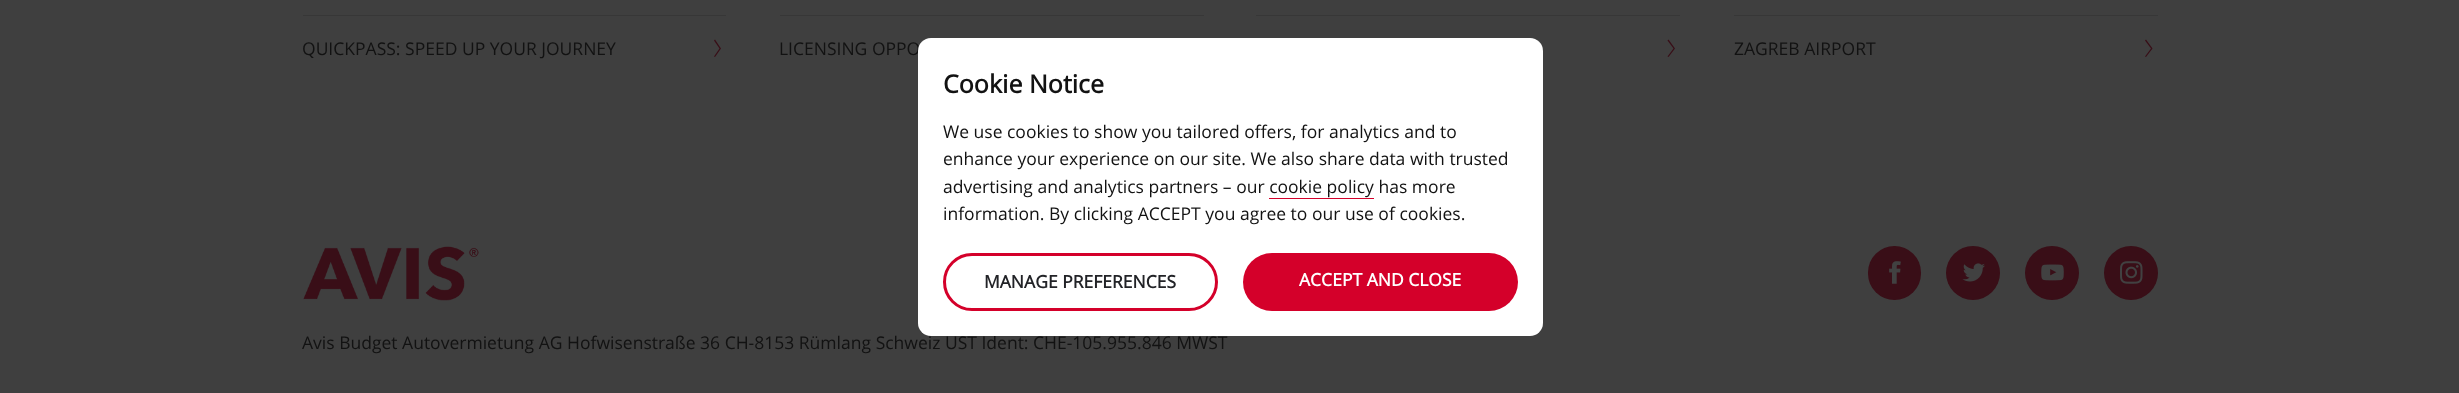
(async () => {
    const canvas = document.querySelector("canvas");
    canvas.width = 2459;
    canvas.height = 393;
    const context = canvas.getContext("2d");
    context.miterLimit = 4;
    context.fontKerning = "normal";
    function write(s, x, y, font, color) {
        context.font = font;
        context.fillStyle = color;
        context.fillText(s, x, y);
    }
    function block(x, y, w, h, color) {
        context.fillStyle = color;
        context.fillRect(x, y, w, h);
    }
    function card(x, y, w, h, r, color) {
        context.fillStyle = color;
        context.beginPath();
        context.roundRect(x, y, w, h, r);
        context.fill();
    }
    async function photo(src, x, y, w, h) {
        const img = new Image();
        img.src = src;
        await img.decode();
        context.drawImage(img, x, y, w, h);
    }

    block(0, 0, 2459, 393, "rgb(63, 63, 63)");
    block(303, 15, 423, 1, "rgb(55, 55, 55)");
    write("QUICKPASS: SPEED UP YOUR JOURNEY", 302, 55, "17.5px Open Sans", "rgb(18, 18, 18)");
    context.fillStyle = "rgb(57, 14, 23)";
    context.beginPath();
    context.moveTo(715, 57);
    context.lineTo(714, 56.5);
    context.lineTo(719.5, 48.5);
    context.lineTo(714, 40.5);
    context.lineTo(715, 39.5);
    context.lineTo(721, 48.5);
    context.closePath();
    context.fill();
    block(780, 15, 424, 1, "rgb(55, 55, 55)");
    write("LICENSING OPPO", 779, 55, "17.5px Open Sans", "rgb(18, 18, 18)");
    block(1256, 15, 424, 1, "rgb(55, 55, 55)");
    context.fillStyle = "rgb(57, 14, 23)";
    context.beginPath();
    context.moveTo(1668.5, 57);
    context.lineTo(1667.5, 56.5);
    context.lineTo(1673.5, 48.5);
    context.lineTo(1667.5, 40.5);
    context.lineTo(1668.5, 39.5);
    context.lineTo(1675, 48.5);
    context.closePath();
    context.fill();
    block(1734, 15, 424, 1, "rgb(55, 55, 55)");
    write("ZAGREB AIRPORT", 1734, 55, "17.5px Open Sans", "rgb(18, 18, 18)");
    context.fillStyle = "rgb(57, 14, 23)";
    context.beginPath();
    context.moveTo(2146, 57);
    context.lineTo(2145, 56.5);
    context.lineTo(2151, 48.5);
    context.lineTo(2145, 40.5);
    context.lineTo(2146, 39.5);
    context.lineTo(2152.5, 48.5);
    context.closePath();
    context.fill();
    await photo("media/1.png", 303, 246, 176, 55);
    card(1868, 246, 53, 54, 26.5, "rgb(57, 14, 23)");
    await photo("media/2.png", 1889, 261, 12, 23);
    context.beginPath();
    context.arc(1973, 273, 27, 0, Math.PI * 2);
    context.fill();
    await photo("media/3.png", 1962, 263, 23, 19);
    context.beginPath();
    context.arc(2052, 273, 27, 0, Math.PI * 2);
    context.fill();
    await photo("media/4.png", 2041, 264, 23, 17);
    context.beginPath();
    context.arc(2131, 273, 27, 0, Math.PI * 2);
    context.fill();
    await photo("media/5.png", 2120, 261, 23, 23);
    write("Avis Budget Autovermietung AG Hofwisenstraße 36 CH-8153 Rümlang Schweiz UST Ident: CHE-105.955.846 MWST", 302, 349, "17.5px Open Sans", "rgb(18, 18, 18)");
    card(918, 38, 625, 298, 13, "rgb(255, 255, 255)");
    write("Cookie Notice", 943, 93, "bold 25px Open Sans", "rgb(18, 18, 18)");
    write("We use cookies to show you tailored offers, for analytics and to", 943, 138, "17.5px Open Sans", "rgb(18, 18, 18)");
    write("enhance your experience on our site. We also share data with trusted", 943, 165, "17.5px Open Sans", "rgb(18, 18, 18)");
    write("advertising and analytics partners – our cookie policy has more", 943, 193, "17.5px Open Sans", "rgb(18, 18, 18)");
    block(1269, 198, 105, 1, "rgb(212, 0, 42)");
    write("information. By clicking ACCEPT you agree to our use of cookies.", 943, 220, "17.5px Open Sans", "rgb(18, 18, 18)");
    context.beginPath();
    context.roundRect(944.5, 254.5, 272, 55, 27.5);
    context.strokeStyle = "rgb(212, 0, 42)";
    context.lineWidth = 3;
    context.stroke();
    write("MANAGE PREFERENCES", 984, 288, "bold 17.5px Open Sans", "rgb(34, 35, 39)");
    card(1243, 253, 275, 58, 29, "rgb(212, 0, 42)");
    write("ACCEPT AND CLOSE", 1299, 286, "bold 17.5px Open Sans", "rgb(255, 255, 255)");
})();
